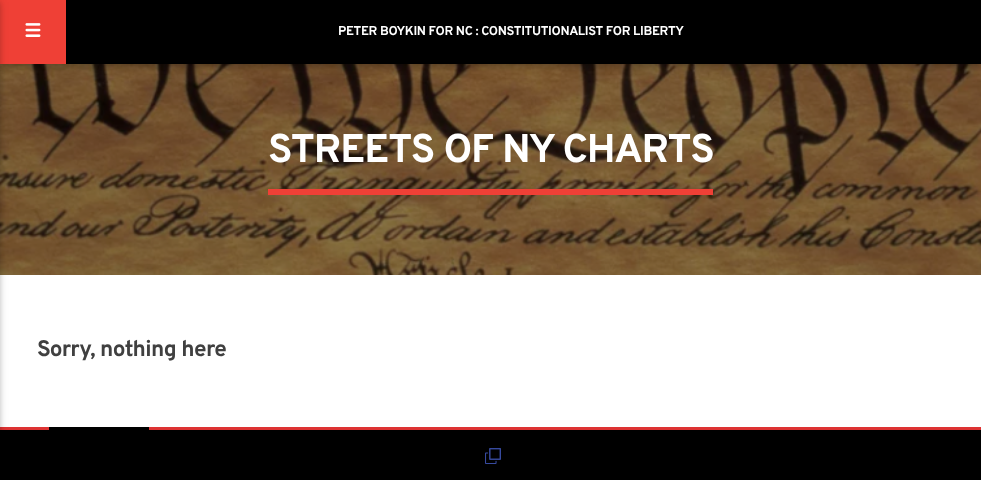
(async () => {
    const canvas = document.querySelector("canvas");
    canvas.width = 981;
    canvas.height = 480;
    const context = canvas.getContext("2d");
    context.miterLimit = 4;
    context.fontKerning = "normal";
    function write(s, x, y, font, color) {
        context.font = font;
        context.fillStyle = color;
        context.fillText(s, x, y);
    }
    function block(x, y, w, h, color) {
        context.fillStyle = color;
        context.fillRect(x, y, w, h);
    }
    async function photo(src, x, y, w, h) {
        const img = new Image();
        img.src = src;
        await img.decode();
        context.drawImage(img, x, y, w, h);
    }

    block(0, 0, 981, 480, "rgb(255, 255, 255)");
    block(0, 64, 981, 211, "rgb(0, 0, 0)");
    await photo("media/2.png", 0, 64, 981, 211);
    context.fillStyle = "rgba(0, 0, 0, 0.12)";
    context.filter = "blur(5px)";
    context.beginPath();
    context.rect(0, 2, 981, 64);
    context.fill();
    context.filter = "none";
    context.fillStyle = "rgba(0, 0, 0, 0.16)";
    context.filter = "blur(2.5px)";
    context.beginPath();
    context.rect(0, 2, 981, 64);
    context.fill();
    context.filter = "none";
    block(0, 0, 66, 64, "rgb(239, 64, 54)");
    block(0, 427, 981, 3, "rgb(221, 51, 51)");
    block(0, 430, 981, 50, "rgb(0, 0, 0)");
    context.fillStyle = "rgba(0, 0, 0, 0.12)";
    context.filter = "blur(5px)";
    context.beginPath();
    context.rect(-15, 2, 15, 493);
    context.fill();
    context.filter = "none";
    context.fillStyle = "rgba(0, 0, 0, 0.16)";
    context.filter = "blur(2.5px)";
    context.beginPath();
    context.rect(-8, 2, 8, 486);
    context.fill();
    context.filter = "none";
    block(66, 0, 915, 64, "rgb(0, 0, 0)");
    await photo("media/1.png", 25, 23, 16, 14);
    context.letterSpacing = "-0.32px";
    write("PETER BOYKIN FOR NC : CONSTITUTIONALIST FOR LIBERTY", 338, 35, "bold 12.8px Overpass", "rgb(255, 255, 255)");
    block(268, 189, 445, 6, "rgb(239, 64, 54)");
    context.letterSpacing = "-1px";
    write("STREETS OF NY CHARTS", 268, 162, "bold 40px Overpass", "rgb(255, 255, 255)");
    context.letterSpacing = "-0.6px";
    write("Sorry, nothing here", 37, 356, "bold 22.5px Overpass", "rgb(64, 64, 64)");
    block(49, 427, 100, 3, "rgb(0, 0, 0)");
    await photo("media/3.png", 485, 448, 16, 16);
})();
